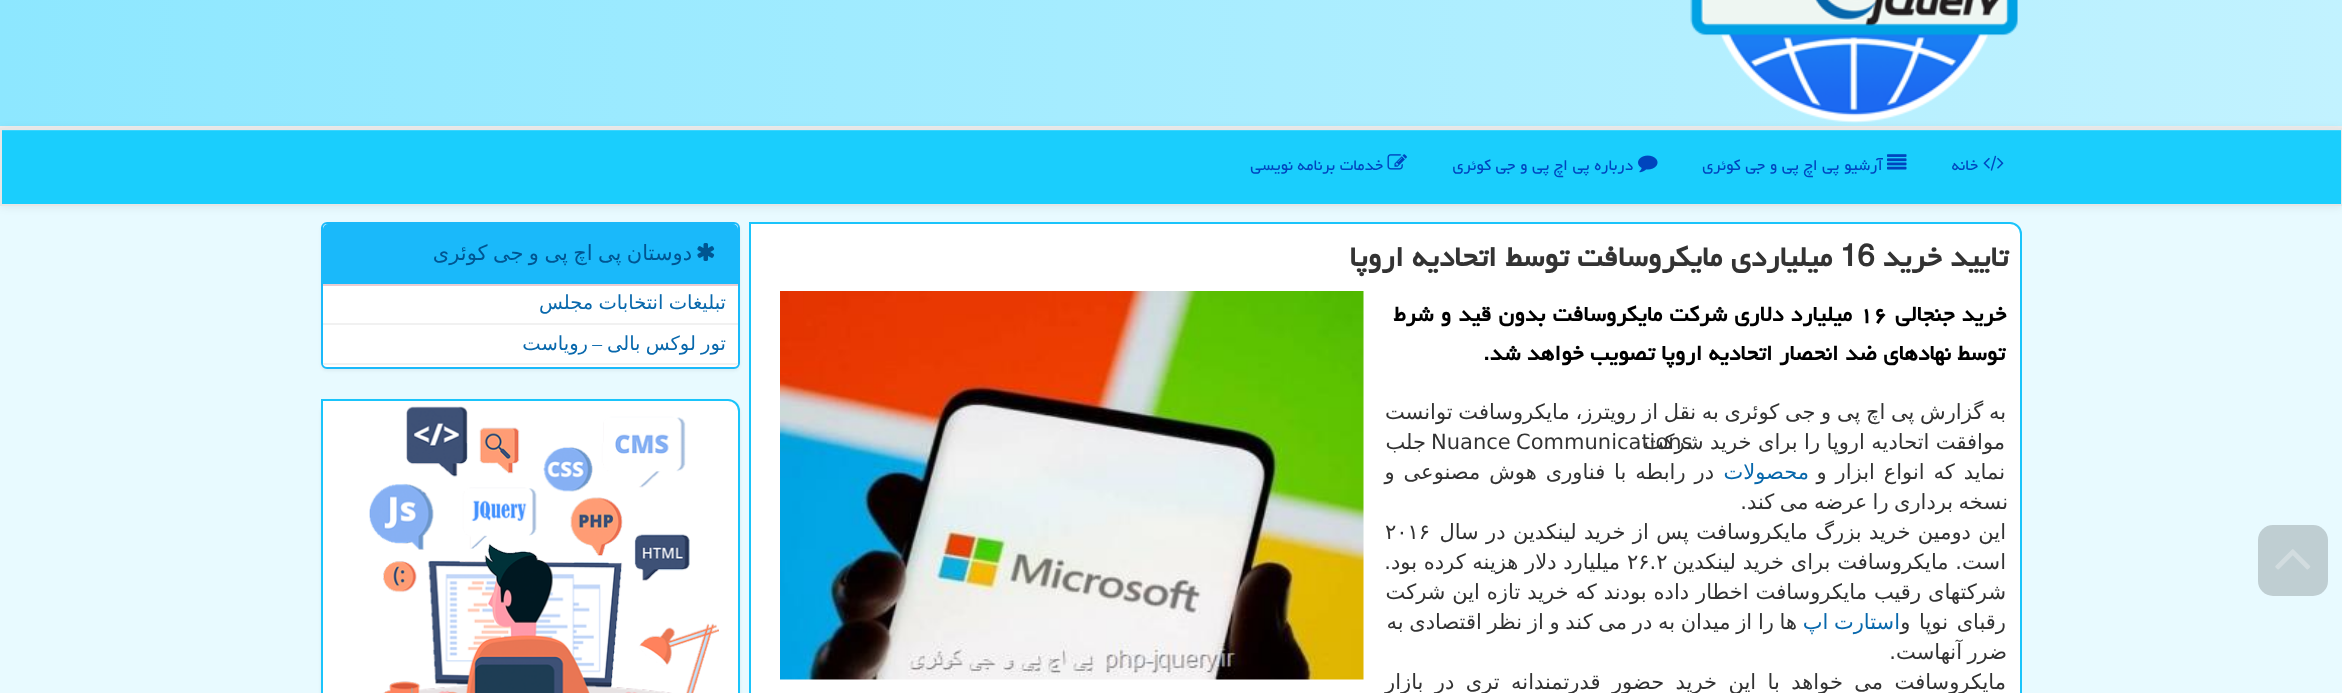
(async () => {
    const canvas = document.querySelector("canvas");
    canvas.width = 2342;
    canvas.height = 693;
    const context = canvas.getContext("2d");
    context.miterLimit = 4;
    context.fontKerning = "normal";
    function write(s, x, y, font, color) {
        context.font = font;
        context.fillStyle = color;
        context.fillText(s, x, y);
    }
    function block(x, y, w, h, color) {
        context.fillStyle = color;
        context.fillRect(x, y, w, h);
    }
    function card(x, y, w, h, r, color) {
        context.fillStyle = color;
        context.beginPath();
        context.roundRect(x, y, w, h, r);
        context.fill();
    }
    async function photo(src, x, y, w, h) {
        const img = new Image();
        img.src = src;
        await img.decode();
        context.drawImage(img, x, y, w, h);
    }
    let gradient;

    block(0, 0, 2342, 693, "rgb(232, 250, 255)");
    gradient = context.createLinearGradient(0, -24, 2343, -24);
    gradient.addColorStop(0, "rgb(141, 231, 255)");
    gradient.addColorStop(1, "rgb(194, 242, 255)");
    context.fillStyle = gradient;
    context.fillRect(0, 0, 2342, 126);
    block(0, 126, 2342, 2, "rgb(238, 238, 238)");
    await photo("media/1.png", 1690, 0, 328, 123);
    context.fillStyle = "rgba(0, 0, 0, 0.07)";
    context.filter = "blur(4px)";
    context.beginPath();
    context.rect(0, 129, 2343, 78);
    context.fill();
    context.filter = "none";
    block(2, 131, 2339, 73, "rgb(26, 206, 253)");
    block(2, 130, 2340, 1, "rgb(60, 213, 253)");
    context.strokeStyle = "rgb(231, 231, 231)";
    context.lineWidth = 2;
    context.strokeRect(1, 129, 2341, 76);
    await photo("media/2.png", 1983, 155, 21, 16);
    context.direction = "rtl";
    write("خانه", 1978, 170, "19.5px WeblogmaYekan", "rgb(0, 69, 190)");
    await photo("media/3.png", 1887, 154, 20, 16);
    write("آرشیو پی اچ پی و جی كوئری", 1883, 170, "19.5px WeblogmaYekan", "rgb(0, 69, 190)");
    await photo("media/4.png", 1638, 155, 20, 18);
    write("درباره پی اچ پی و جی كوئری", 1633, 170, "19.5px WeblogmaYekan", "rgb(0, 69, 190)");
    await photo("media/5.png", 1387, 154, 20, 16);
    write("خدمات برنامه نویسی", 1383, 170, "19.5px WeblogmaYekan", "rgb(0, 69, 190)");
    card(2258, 525, 70, 71, 15, "rgb(191, 206, 210)");
    await photo("media/6.png", 2275, 549, 36, 21);
    context.fillStyle = "rgb(255, 255, 255)";
    context.beginPath();
    context.moveTo(750, 223);
    context.lineTo(2010, 223);
    context.bezierCurveTo(2016, 223, 2021, 228, 2021, 234);
    context.lineTo(2021, 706);
    context.lineTo(761, 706);
    context.bezierCurveTo(755, 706, 750, 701, 750, 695);
    context.closePath();
    context.fill();
    context.strokeStyle = "rgb(26, 196, 251)";
    context.stroke();
    write("تایید خرید", 2008, 266, "bold 35.75px WeblogmaYekan", "rgb(51, 51, 51)");
    context.direction = "ltr";
    write("16", 1840, 266, "bold 35.75px WeblogmaYekan", "rgb(51, 51, 51)");
    context.direction = "rtl";
    write("میلیاردی مایکروسافت توسط اتحادیه اروپا", 1832, 266, "bold 35.75px WeblogmaYekan", "rgb(51, 51, 51)");
    context.wordSpacing = "0.75px";
    write("خرید جنجالی", 2006, 321, "bold 27px WeblogmaYekan", "rgb(0, 0, 0)");
    context.wordSpacing = "0px";
    context.direction = "ltr";
    write("۱۶", 1859, 321, "bold 27px WeblogmaYekan", "rgb(0, 0, 0)");
    context.wordSpacing = "0.75px";
    context.direction = "rtl";
    write("میلیارد دلاری شرکت مایکروسافت بدون قید و شرط", 1852, 321, "bold 27px WeblogmaYekan", "rgb(0, 0, 0)");
    context.wordSpacing = "0px";
    write("توسط نهادهای ضد انحصار اتحادیه اروپا تصویب خواهد شد.", 2005, 360, "bold 27px WeblogmaYekan", "rgb(0, 0, 0)");
    await photo("media/7.png", 780, 291, 584, 389);
    context.wordSpacing = "-1px";
    write("به گزارش پی اچ پی و جی کوئری به نقل از رویترز، مایکروسافت توانست", 2006, 419, "21px DejaVu Sans", "rgb(51, 51, 51)");
    context.wordSpacing = "-1.25px";
    context.direction = "ltr";
    write("Nuance Communications", 1431, 449, "21px DejaVu Sans", "rgb(51, 51, 51)");
    context.wordSpacing = "-0.25px";
    context.direction = "rtl";
    write("موافقت اتحادیه اروپا را برای خرید شرکت", 2005, 449, "21px DejaVu Sans", "rgb(51, 51, 51)");
    context.wordSpacing = "0px";
    write("جلب", 1426, 449, "21px DejaVu Sans", "rgb(51, 51, 51)");
    context.wordSpacing = "2.25px";
    write("نماید که انواع ابزار و", 2005, 479, "21px DejaVu Sans", "rgb(51, 51, 51)");
    context.wordSpacing = "0px";
    write("محصولات", 1809, 479, "21px DejaVu Sans", "rgb(8, 104, 172)");
    context.wordSpacing = "2.25px";
    write("در رابطه با فناوری هوش مصنوعی و", 1714, 479, "21px DejaVu Sans", "rgb(51, 51, 51)");
    context.wordSpacing = "-1.25px";
    write("نسخه برداری را عرضه می کند.", 2008, 509, "21px DejaVu Sans", "rgb(51, 51, 51)");
    context.wordSpacing = "0.75px";
    write("این دومین خرید بزرگ مایکروسافت پس از خرید لینکدین در سال", 2006, 539, "21px DejaVu Sans", "rgb(51, 51, 51)");
    context.wordSpacing = "0px";
    context.direction = "ltr";
    write("۲۰۱۶", 1385, 539, "21px DejaVu Sans", "rgb(51, 51, 51)");
    context.direction = "rtl";
    write("است. مایکروسافت برای خرید لینکدین", 2006, 569, "21px DejaVu Sans", "rgb(51, 51, 51)");
    context.direction = "ltr";
    write("۲۶.۲", 1627, 569, "21px DejaVu Sans", "rgb(51, 51, 51)");
    context.direction = "rtl";
    write("میلیارد دلار هزینه کرده بود.", 1620, 569, "21px DejaVu Sans", "rgb(51, 51, 51)");
    context.wordSpacing = "0.25px";
    write("شرکتهای رقیب مایکروسافت اخطار داده بودند که خرید تازه این شرکت", 2006, 599, "21px DejaVu Sans", "rgb(51, 51, 51)");
    context.wordSpacing = "2px";
    write("رقبای نوپا و", 2006, 629, "21px DejaVu Sans", "rgb(51, 51, 51)");
    context.wordSpacing = "-1px";
    write("استارت اپ", 1900, 629, "21px DejaVu Sans", "rgb(8, 104, 172)");
    write("ها را از میدان به در می کند و از نظر اقتصادی به", 1797, 629, "21px DejaVu Sans", "rgb(51, 51, 51)");
    context.wordSpacing = "-1.25px";
    write("ضرر آنهاست.", 2007, 659, "21px DejaVu Sans", "rgb(51, 51, 51)");
    context.wordSpacing = "4.75px";
    write("مایکروسافت می خواهد با این خرید حضور قدرتمندانه تری در بازار", 2006, 689, "21px DejaVu Sans", "rgb(51, 51, 51)");
    context.fillStyle = "rgba(0, 0, 0, 0.05)";
    context.filter = "blur(1.5px)";
    context.beginPath();
    context.roundRect(321, 224, 419, 147, 6);
    context.fill();
    context.filter = "none";
    context.fillStyle = "rgb(255, 255, 255)";
    context.beginPath();
    context.roundRect(322, 223, 417, 145, 5);
    context.fill();
    context.strokeStyle = "rgb(26, 185, 250)";
    context.stroke();
    context.fillStyle = "rgb(26, 185, 250)";
    context.beginPath();
    context.roundRect(323, 224, 415, 61, [5, 5, 0, 0]);
    context.fill();
    block(323, 284, 415, 2, "rgb(235, 204, 209)");
    await photo("media/8.png", 697, 243, 18, 18);
    context.wordSpacing = "-1.25px";
    write("دوستان پی اچ پی و جی كوئری", 692, 260, "21px DejaVu Sans", "rgb(0, 85, 145)");
    block(323, 323, 415, 2, "rgb(241, 241, 241)");
    context.wordSpacing = "-1px";
    write("تبلیغات انتخابات مجلس", 726, 309, "19.5px DejaVu Sans", "rgb(8, 104, 172)");
    block(323, 363, 415, 2, "rgb(241, 241, 241)");
    write("تور لوکس بالی", 726, 350, "19.5px DejaVu Sans", "rgb(8, 104, 172)");
    context.wordSpacing = "0px";
    write("–", 602, 350, "19.5px Liberation Serif", "rgb(8, 104, 172)");
    write("رویاست", 588, 350, "19.5px DejaVu Sans", "rgb(8, 104, 172)");
    context.fillStyle = "rgba(0, 0, 0, 0.07)";
    context.filter = "blur(1.5px)";
    context.beginPath();
    context.roundRect(321, 401, 419, 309, 12);
    context.fill();
    context.filter = "none";
    context.fillStyle = "rgb(255, 255, 255)";
    context.beginPath();
    context.moveTo(322, 400);
    context.lineTo(728, 400);
    context.bezierCurveTo(734, 400, 739, 405, 739, 411);
    context.lineTo(739, 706);
    context.lineTo(333, 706);
    context.bezierCurveTo(327, 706, 322, 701, 322, 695);
    context.closePath();
    context.fill();
    context.strokeStyle = "rgb(26, 196, 251)";
    context.stroke();
    await photo("media/9.png", 369, 406, 350, 287);
})();
